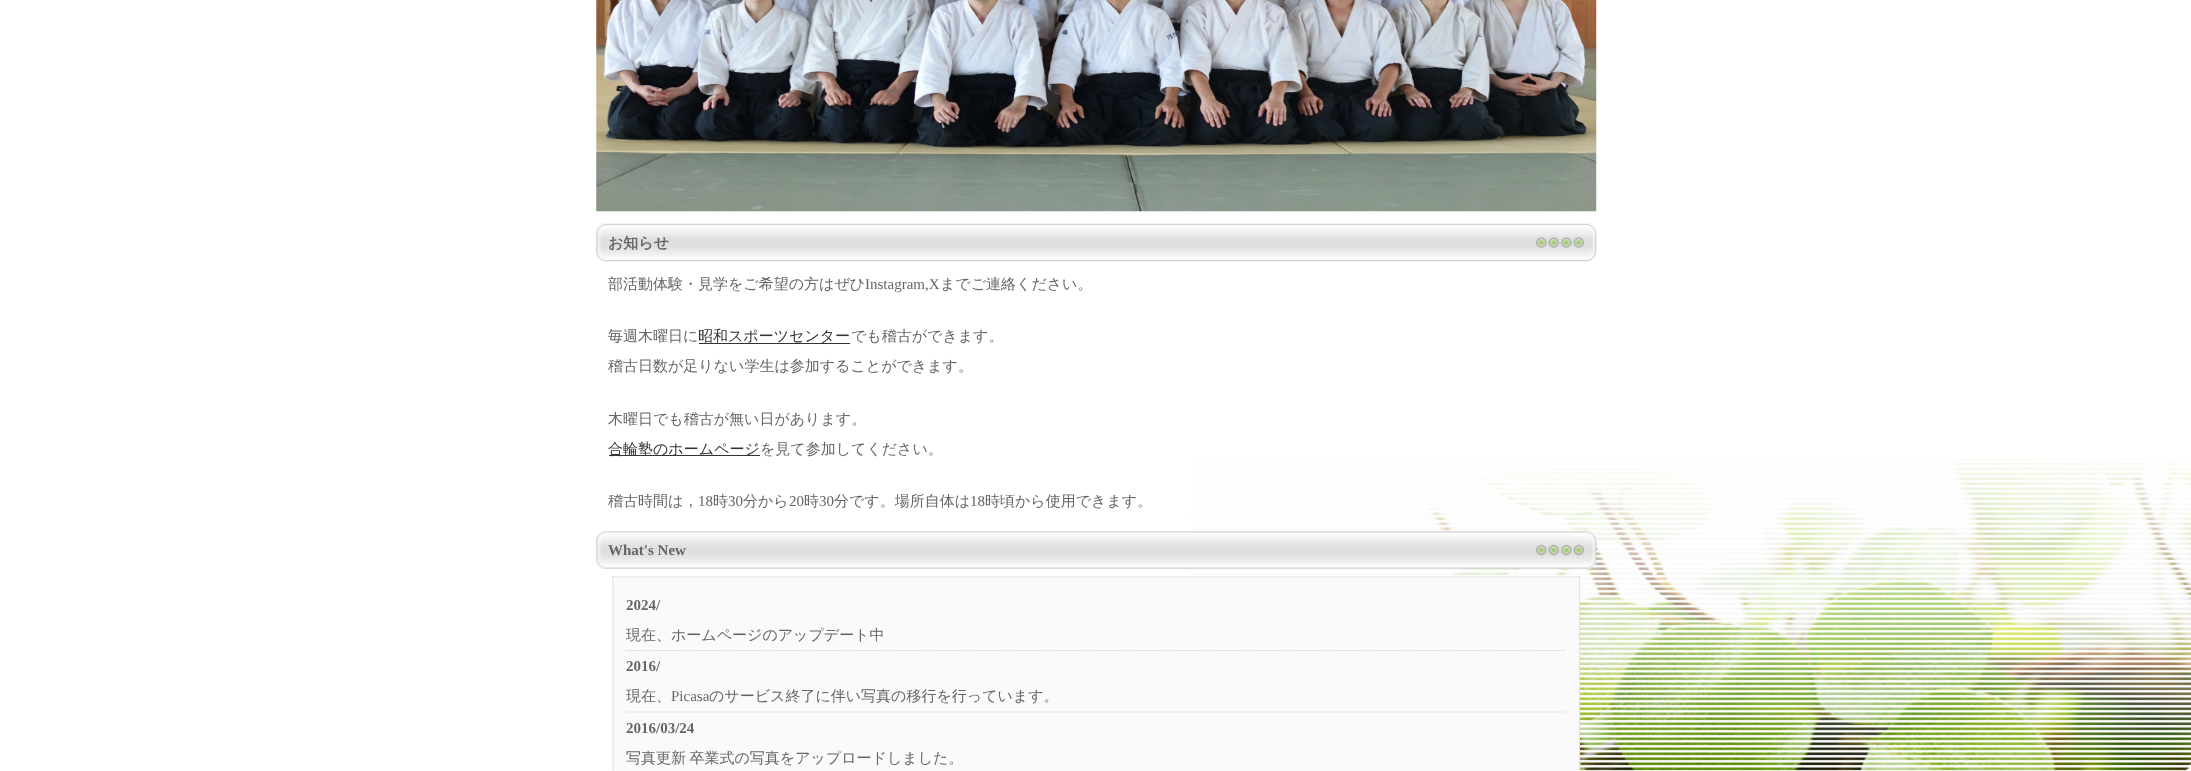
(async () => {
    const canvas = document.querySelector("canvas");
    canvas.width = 2191;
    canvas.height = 771;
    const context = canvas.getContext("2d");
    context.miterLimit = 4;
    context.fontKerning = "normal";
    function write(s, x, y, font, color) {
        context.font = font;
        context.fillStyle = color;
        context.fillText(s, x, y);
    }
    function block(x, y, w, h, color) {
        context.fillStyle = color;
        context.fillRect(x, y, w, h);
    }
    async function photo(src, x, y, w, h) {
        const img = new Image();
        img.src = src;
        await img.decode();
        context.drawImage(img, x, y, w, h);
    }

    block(0, 0, 2191, 771, "rgb(255, 255, 255)");
    await photo("media/1.png", 1191, 459, 1000, 312);
    await photo("media/2.png", 596, 0, 1001, 212);
    await photo("media/3.png", 596, 223, 1001, 39);
    write("お知らせ", 608, 248, "bold 15px WenQuanYi Zen Hei", "rgb(102, 102, 102)");
    write("部活動体験・見学をご希望の方はぜひ", 608, 289, "500 15px WenQuanYi Zen Hei", "rgb(102, 102, 102)");
    write("Instagram,X", 865, 289, "15px Liberation Serif", "rgb(102, 102, 102)");
    write("までご連絡ください。", 940, 289, "500 15px WenQuanYi Zen Hei", "rgb(102, 102, 102)");
    write("毎週木曜日に", 608, 341, "500 15px WenQuanYi Zen Hei", "rgb(102, 102, 102)");
    block(699, 343, 151, 1, "rgb(51, 51, 51)");
    write("昭和スポーツセンター", 698, 341, "500 15px WenQuanYi Zen Hei", "rgb(51, 51, 51)");
    write("でも稽古ができます。", 851, 341, "500 15px WenQuanYi Zen Hei", "rgb(102, 102, 102)");
    write("稽古日数が足りない学生は参加することができます。", 608, 371, "500 15px WenQuanYi Zen Hei", "rgb(102, 102, 102)");
    write("木曜日でも稽古が無い日があります。", 608, 424, "500 15px WenQuanYi Zen Hei", "rgb(102, 102, 102)");
    block(609, 455, 151, 1, "rgb(51, 51, 51)");
    write("合輪塾のホームページ", 608, 454, "500 15px WenQuanYi Zen Hei", "rgb(51, 51, 51)");
    write("を見て参加してください。", 760, 454, "500 15px WenQuanYi Zen Hei", "rgb(102, 102, 102)");
    write("稽古時間は，", 608, 506, "500 15px WenQuanYi Zen Hei", "rgb(102, 102, 102)");
    write("18", 698, 506, "15px Liberation Serif", "rgb(102, 102, 102)");
    write("時", 713, 506, "500 15px WenQuanYi Zen Hei", "rgb(102, 102, 102)");
    write("30", 728, 506, "15px Liberation Serif", "rgb(102, 102, 102)");
    write("分から", 743, 506, "500 15px WenQuanYi Zen Hei", "rgb(102, 102, 102)");
    write("20", 789, 506, "15px Liberation Serif", "rgb(102, 102, 102)");
    write("時", 804, 506, "500 15px WenQuanYi Zen Hei", "rgb(102, 102, 102)");
    write("30", 819, 506, "15px Liberation Serif", "rgb(102, 102, 102)");
    write("分です。場所自体は", 834, 506, "500 15px WenQuanYi Zen Hei", "rgb(102, 102, 102)");
    write("18", 970, 506, "15px Liberation Serif", "rgb(102, 102, 102)");
    write("時頃から使用できます。", 985, 506, "500 15px WenQuanYi Zen Hei", "rgb(102, 102, 102)");
    await photo("media/4.png", 596, 531, 1001, 38);
    write("What's New", 608, 555, "bold 15px Liberation Serif", "rgb(102, 102, 102)");
    block(613, 576, 967, 195, "rgb(250, 250, 250)");
    context.beginPath();
    context.moveTo(612.5, 577);
    context.lineTo(1580, 577);
    context.strokeStyle = "rgb(207, 207, 207)";
    context.lineWidth = 1.2;
    context.setLineDash([1.25, 1.25]);
    context.stroke();
    context.beginPath();
    context.moveTo(1579.5, 576);
    context.lineTo(1579.5, 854);
    context.stroke();
    context.beginPath();
    context.moveTo(613, 576);
    context.lineTo(613, 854);
    context.stroke();
    write("2024/", 626, 610, "bold 15px Liberation Serif", "rgb(102, 102, 102)");
    context.beginPath();
    context.moveTo(626, 650.5);
    context.lineTo(1566, 650.5);
    context.stroke();
    write("現在、ホームページのアップデート中", 626, 640, "500 15px WenQuanYi Zen Hei", "rgb(102, 102, 102)");
    write("2016/", 626, 671, "bold 15px Liberation Serif", "rgb(102, 102, 102)");
    context.beginPath();
    context.moveTo(626, 712);
    context.lineTo(1566, 712);
    context.stroke();
    write("現在、", 626, 701, "500 15px WenQuanYi Zen Hei", "rgb(102, 102, 102)");
    write("Picasa", 671, 701, "15px Liberation Serif", "rgb(102, 102, 102)");
    write("のサービス終了に伴い写真の移行を行っています。", 709, 701, "500 15px WenQuanYi Zen Hei", "rgb(102, 102, 102)");
    write("2016/03/24", 626, 733, "bold 15px Liberation Serif", "rgb(102, 102, 102)");
    context.wordSpacing = "-1px";
    write("写真更新 卒業式の写真をアップロードしました。", 626, 763, "500 15px WenQuanYi Zen Hei", "rgb(102, 102, 102)");
})();
